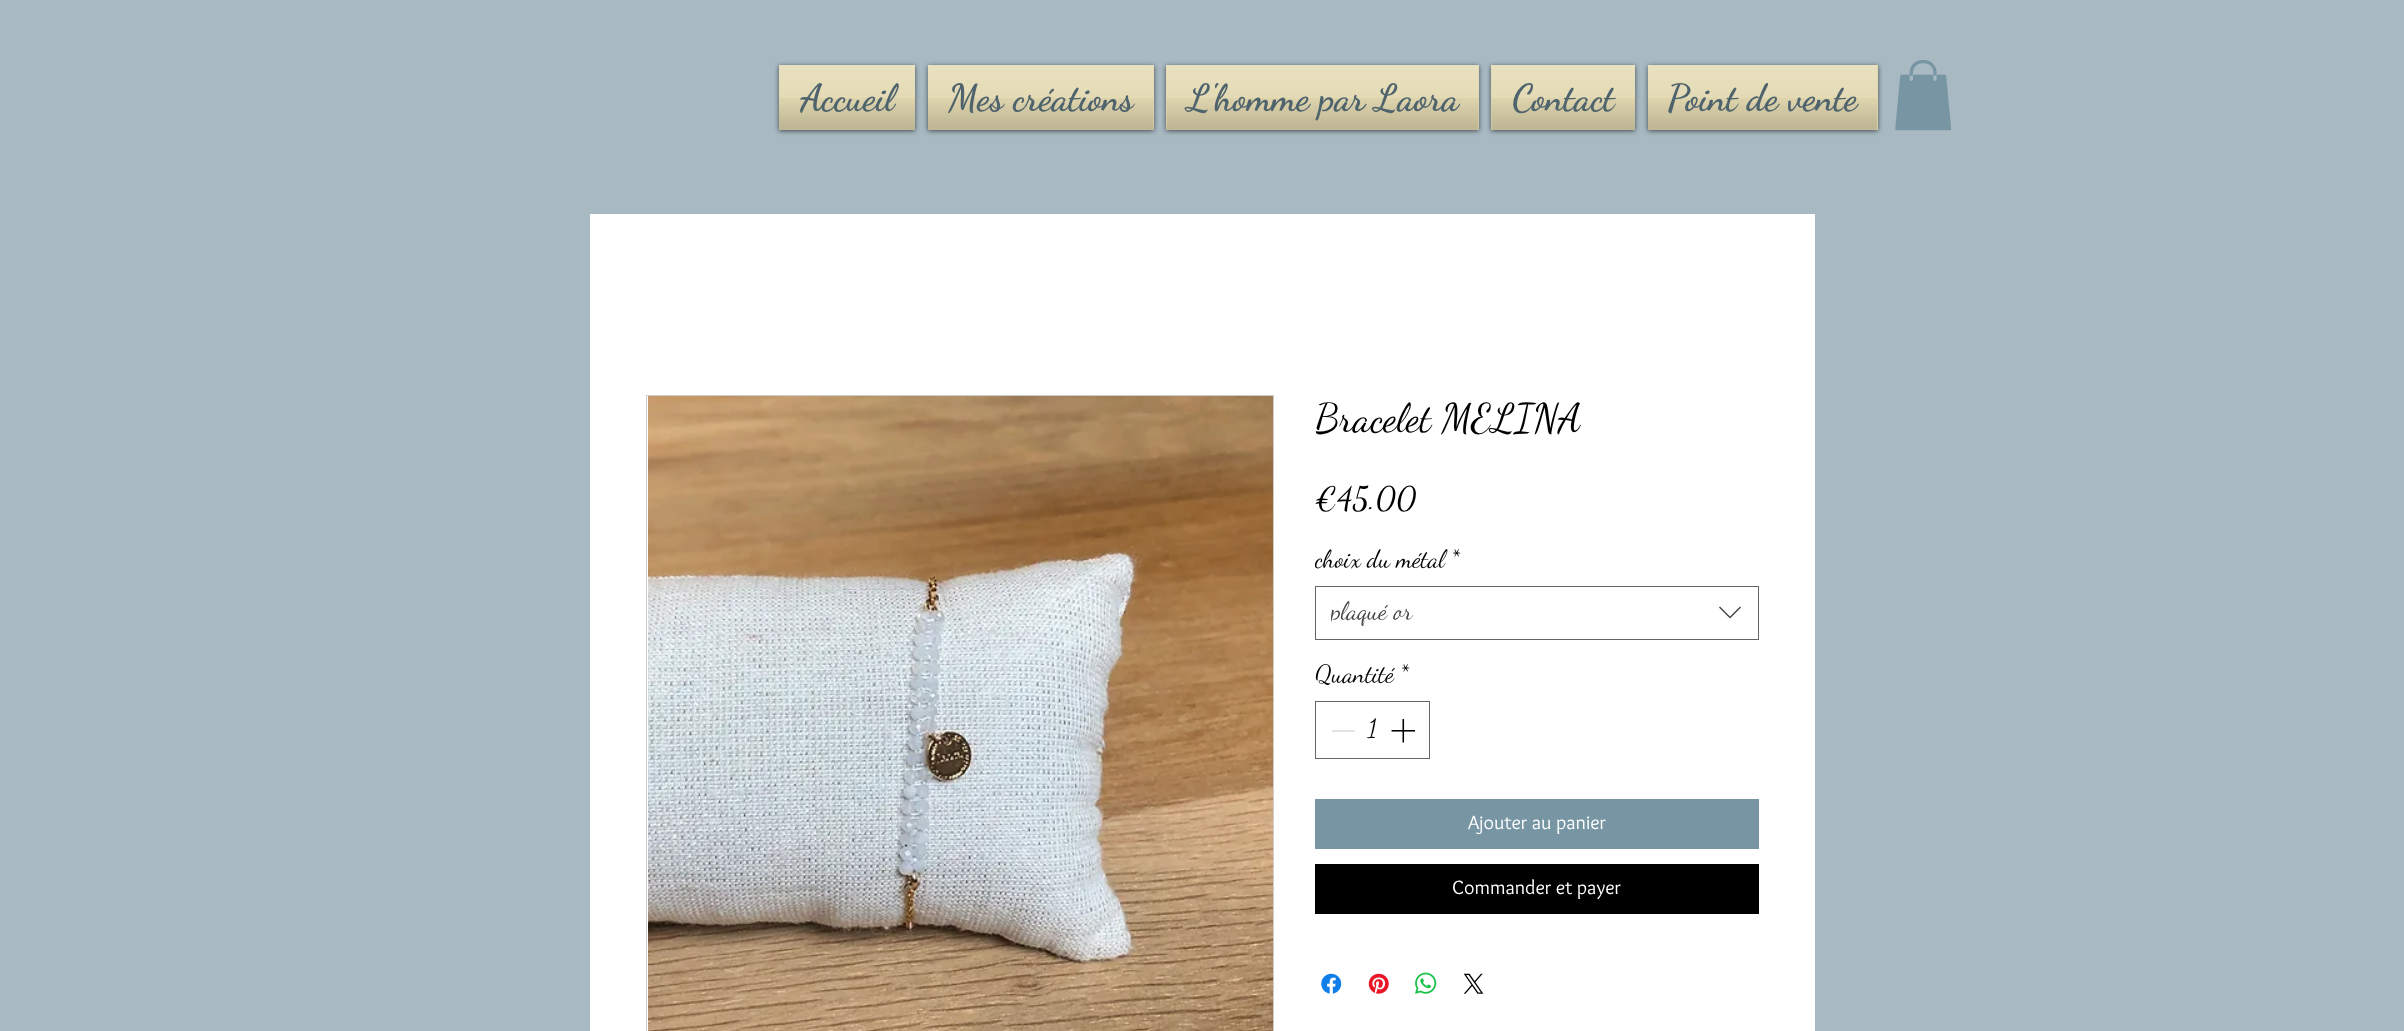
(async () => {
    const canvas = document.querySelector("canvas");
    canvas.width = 2404;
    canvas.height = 1031;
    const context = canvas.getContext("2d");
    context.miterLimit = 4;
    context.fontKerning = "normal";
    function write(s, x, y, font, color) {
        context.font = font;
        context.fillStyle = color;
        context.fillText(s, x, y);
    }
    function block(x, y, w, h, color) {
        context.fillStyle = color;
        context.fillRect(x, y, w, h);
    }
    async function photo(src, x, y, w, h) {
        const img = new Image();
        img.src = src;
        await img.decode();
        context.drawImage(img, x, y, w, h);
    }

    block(0, 0, 2404, 1031, "rgb(168, 185, 194)");
    context.fillStyle = "rgba(0, 0, 0, 0.6)";
    context.filter = "blur(2.5px)";
    context.beginPath();
    context.rect(779, 66, 136, 65);
    context.fill();
    context.filter = "none";
    block(779, 65, 136, 65, "rgb(227, 217, 177)");
    await photo("media/1.png", 779, 65, 136, 33);
    await photo("media/2.png", 779, 98, 136, 32);
    write("Accueil", 800, 110, "bold 37.5px Dancing Script", "rgb(79, 99, 109)");
    context.fillStyle = "rgba(0, 0, 0, 0.6)";
    context.filter = "blur(2.5px)";
    context.beginPath();
    context.rect(928, 66, 226, 65);
    context.fill();
    context.filter = "none";
    block(928, 65, 226, 65, "rgb(227, 217, 177)");
    await photo("media/3.png", 927, 65, 227, 33);
    await photo("media/4.png", 927, 98, 227, 32);
    write("Mes créations", 948, 110, "bold 37.5px Dancing Script", "rgb(79, 99, 109)");
    context.fillStyle = "rgba(0, 0, 0, 0.6)";
    context.filter = "blur(2.5px)";
    context.beginPath();
    context.rect(1166, 66, 313, 65);
    context.fill();
    context.filter = "none";
    block(1166, 65, 313, 65, "rgb(227, 217, 177)");
    await photo("media/5.png", 1166, 65, 313, 33);
    await photo("media/6.png", 1166, 98, 313, 32);
    write("L'homme par Laora", 1187, 110, "bold 37.5px Dancing Script", "rgb(79, 99, 109)");
    context.fillStyle = "rgba(0, 0, 0, 0.6)";
    context.filter = "blur(2.5px)";
    context.beginPath();
    context.rect(1491, 66, 144, 65);
    context.fill();
    context.filter = "none";
    block(1491, 65, 144, 65, "rgb(227, 217, 177)");
    await photo("media/7.png", 1491, 65, 144, 33);
    await photo("media/8.png", 1491, 98, 144, 32);
    write("Contact", 1512, 110, "bold 37.5px Dancing Script", "rgb(79, 99, 109)");
    context.fillStyle = "rgba(0, 0, 0, 0.6)";
    context.filter = "blur(2.5px)";
    context.beginPath();
    context.rect(1648, 66, 230, 65);
    context.fill();
    context.filter = "none";
    block(1648, 65, 230, 65, "rgb(227, 217, 177)");
    await photo("media/9.png", 1647, 65, 230, 33);
    await photo("media/10.png", 1647, 98, 231, 32);
    write("Point de vente", 1667, 110, "bold 37.5px Dancing Script", "rgb(79, 99, 109)");
    await photo("media/11.png", 1895, 60, 57, 71);
    block(590, 214, 1225, 817, "rgb(255, 255, 255)");
    context.strokeStyle = "rgb(204, 204, 204)";
    context.strokeRect(646.5, 395.5, 627, 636);
    await photo("media/12.png", 648, 396, 625, 635);
    write("Bracelet MELINA", 1315, 431, "40px Dancing Script", "rgb(0, 0, 0)");
    write("€45.00", 1315, 509, "32.5px Dancing Script", "rgb(0, 0, 0)");
    write("choix du métal", 1315, 567, "25px Dancing Script", "rgb(0, 0, 0)");
    write("*", 1450, 567, "25px Dancing Script", "rgb(0, 0, 0)");
    context.strokeStyle = "rgb(102, 102, 102)";
    context.strokeRect(1315.5, 586.5, 443, 53);
    context.save();
    context.beginPath();
    context.rect(1331, 598, 375, 31);
    context.clip();
    write("plaqué or", 1331, 619, "25px Dancing Script", "rgb(68, 68, 68)");
    context.restore();
    context.fillStyle = "rgb(68, 68, 68)";
    context.beginPath();
    context.moveTo(1740, 606.5);
    context.lineTo(1741, 607.5);
    context.lineTo(1730, 618.5);
    context.lineTo(1719, 607.5);
    context.lineTo(1720, 606.5);
    context.lineTo(1730, 616.5);
    context.closePath();
    context.fill("evenodd");
    write("Quantité", 1315, 682, "25px Dancing Script", "rgb(0, 0, 0)");
    write("*", 1399, 682, "25px Dancing Script", "rgb(0, 0, 0)");
    context.strokeRect(1315.5, 701.5, 114, 57);
    block(1332, 730, 23, 2, "rgb(227, 227, 227)");
    write("1", 1368, 736, "25px Dancing Script", "rgb(0, 0, 0)");
    await photo("media/13.png", 1391, 719, 24, 24);
    block(1315, 799, 444, 50, "rgb(119, 149, 163)");
    write("Ajouter au panier", 1468, 829, "20px Overlock", "rgb(255, 255, 255)");
    block(1315, 864, 444, 50, "rgb(0, 0, 0)");
    write("Commander et payer", 1452, 894, "20px Overlock", "rgb(255, 255, 255)");
    await photo("media/14.png", 1321, 973, 21, 21);
    await photo("media/15.png", 1368, 973, 21, 21);
    await photo("media/16.png", 1415, 972, 22, 22);
    await photo("media/17.png", 1463, 973, 21, 21);
})();
